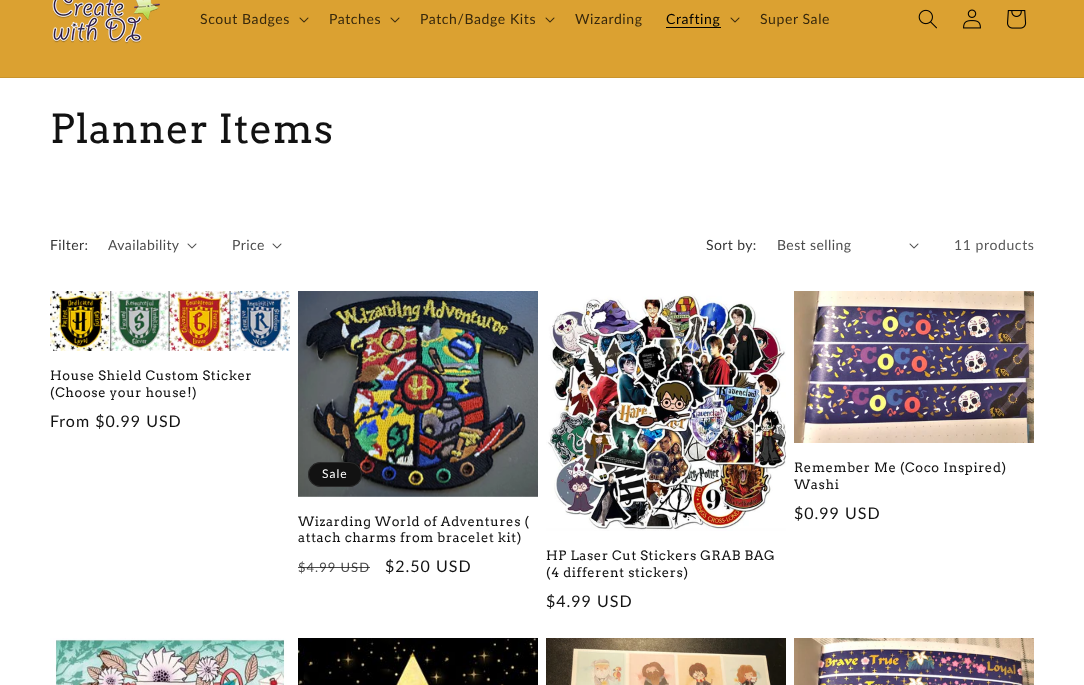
(async () => {
    const canvas = document.querySelector("canvas");
    canvas.width = 1084;
    canvas.height = 685;
    const context = canvas.getContext("2d");
    context.miterLimit = 4;
    context.fontKerning = "normal";
    function write(s, x, y, font, color) {
        context.font = font;
        context.fillStyle = color;
        context.fillText(s, x, y);
    }
    function block(x, y, w, h, color) {
        context.fillStyle = color;
        context.fillRect(x, y, w, h);
    }
    function card(x, y, w, h, r, color) {
        context.fillStyle = color;
        context.beginPath();
        context.roundRect(x, y, w, h, r);
        context.fill();
    }
    async function photo(src, x, y, w, h) {
        const img = new Image();
        img.src = src;
        await img.decode();
        context.drawImage(img, x, y, w, h);
    }

    block(0, 0, 1084, 685, "rgb(255, 255, 255)");
    block(0, 0, 1084, 77, "rgb(219, 161, 49)");
    block(0, 77, 1084, 1, "rgb(201, 148, 45)");
    await photo("media/1.png", 52, 0, 108, 44);
    context.letterSpacing = "0.6px";
    write("Scout Badges", 200, 24, "14px Lato", "rgb(55, 40, 12)");
    await photo("media/2.png", 299, 17, 10, 6);
    write("Patches", 329, 24, "14px Lato", "rgb(55, 40, 12)");
    await photo("media/2.png", 390, 17, 10, 6);
    write("Patch/Badge Kits", 420, 24, "14px Lato", "rgb(55, 40, 12)");
    await photo("media/2.png", 545, 17, 10, 6);
    write("Wizarding", 575, 24, "14px Lato", "rgb(55, 40, 12)");
    write("Crafting", 666, 24, "14px Lato", "rgb(0, 0, 0)");
    block(666, 27, 55, 1, "rgb(0, 0, 0)");
    await photo("media/2.png", 730, 17, 10, 6);
    write("Super Sale", 760, 24, "14px Lato", "rgb(55, 40, 12)");
    await photo("media/3.png", 918, 9, 19, 20);
    await photo("media/4.png", 963, 9, 18, 20);
    await photo("media/5.png", 1007, 10, 20, 19);
    write("Planner Items", 50, 143, "40px Arvo", "rgb(18, 18, 18)");
    context.letterSpacing = "0.4px";
    write("Filter:", 50, 250, "14px Lato", "rgb(54, 54, 54)");
    write("Availability", 108, 250, "14px Lato", "rgb(77, 77, 77)");
    await photo("media/6.png", 187, 243, 10, 6);
    write("Price", 232, 250, "14px Lato", "rgb(77, 77, 77)");
    await photo("media/6.png", 272, 243, 10, 6);
    write("Sort by:", 706, 250, "14px Lato", "rgb(54, 54, 54)");
    write("Best selling", 777, 250, "14px Lato", "rgb(77, 77, 77)");
    await photo("media/6.png", 909, 243, 10, 6);
    context.letterSpacing = "0.6px";
    write("11 products", 954, 250, "14px Lato", "rgb(89, 89, 89)");
    await photo("media/7.png", 50, 291, 240, 60);
    write("House Shield Custom Sticker", 50, 380, "13px Arvo", "rgb(18, 18, 18)");
    write("(Choose your house!)", 50, 397, "13px Arvo", "rgb(18, 18, 18)");
    context.letterSpacing = "1px";
    write("From $0.99 USD", 50, 427, "16px Lato", "rgb(18, 18, 18)");
    await photo("media/8.png", 298, 291, 240, 206);
    card(308, 462, 54, 25, 12.5, "rgb(18, 18, 18)");
    context.beginPath();
    context.roundRect(308.5, 462.5, 53, 24, 12);
    context.strokeStyle = "rgba(255, 255, 255, 0.1)";
    context.stroke();
    write("Sale", 322, 478, "12px Lato", "rgb(255, 255, 255)");
    context.letterSpacing = "0.6px";
    write("Wizarding World of Adventures (", 298, 526, "13px Arvo", "rgb(18, 18, 18)");
    write("attach charms from bracelet kit)", 298, 542, "13px Arvo", "rgb(18, 18, 18)");
    context.letterSpacing = "1px";
    write("$4.99 USD", 298, 572, "13px Lato", "rgb(77, 77, 77)");
    block(298, 567, 72, 1, "rgba(18, 18, 18, 0.75)");
    write("$2.50 USD", 385, 572, "16px Lato", "rgb(18, 18, 18)");
    await photo("media/9.png", 546, 291, 240, 240);
    context.letterSpacing = "0.6px";
    write("HP Laser Cut Stickers GRAB BAG", 546, 560, "13px Arvo", "rgb(18, 18, 18)");
    write("(4 different stickers)", 546, 577, "13px Arvo", "rgb(18, 18, 18)");
    context.letterSpacing = "1px";
    write("$4.99 USD", 546, 607, "16px Lato", "rgb(18, 18, 18)");
    await photo("media/10.png", 794, 291, 240, 152);
    context.letterSpacing = "0.6px";
    write("Remember Me (Coco Inspired)", 794, 472, "13px Arvo", "rgb(18, 18, 18)");
    write("Washi", 794, 489, "13px Arvo", "rgb(18, 18, 18)");
    context.letterSpacing = "1px";
    write("$0.99 USD", 794, 519, "16px Lato", "rgb(18, 18, 18)");
    await photo("media/11.png", 50, 638, 240, 47);
    await photo("media/12.png", 298, 638, 240, 47);
    await photo("media/13.png", 546, 638, 240, 47);
    await photo("media/14.png", 794, 638, 240, 47);
})();
